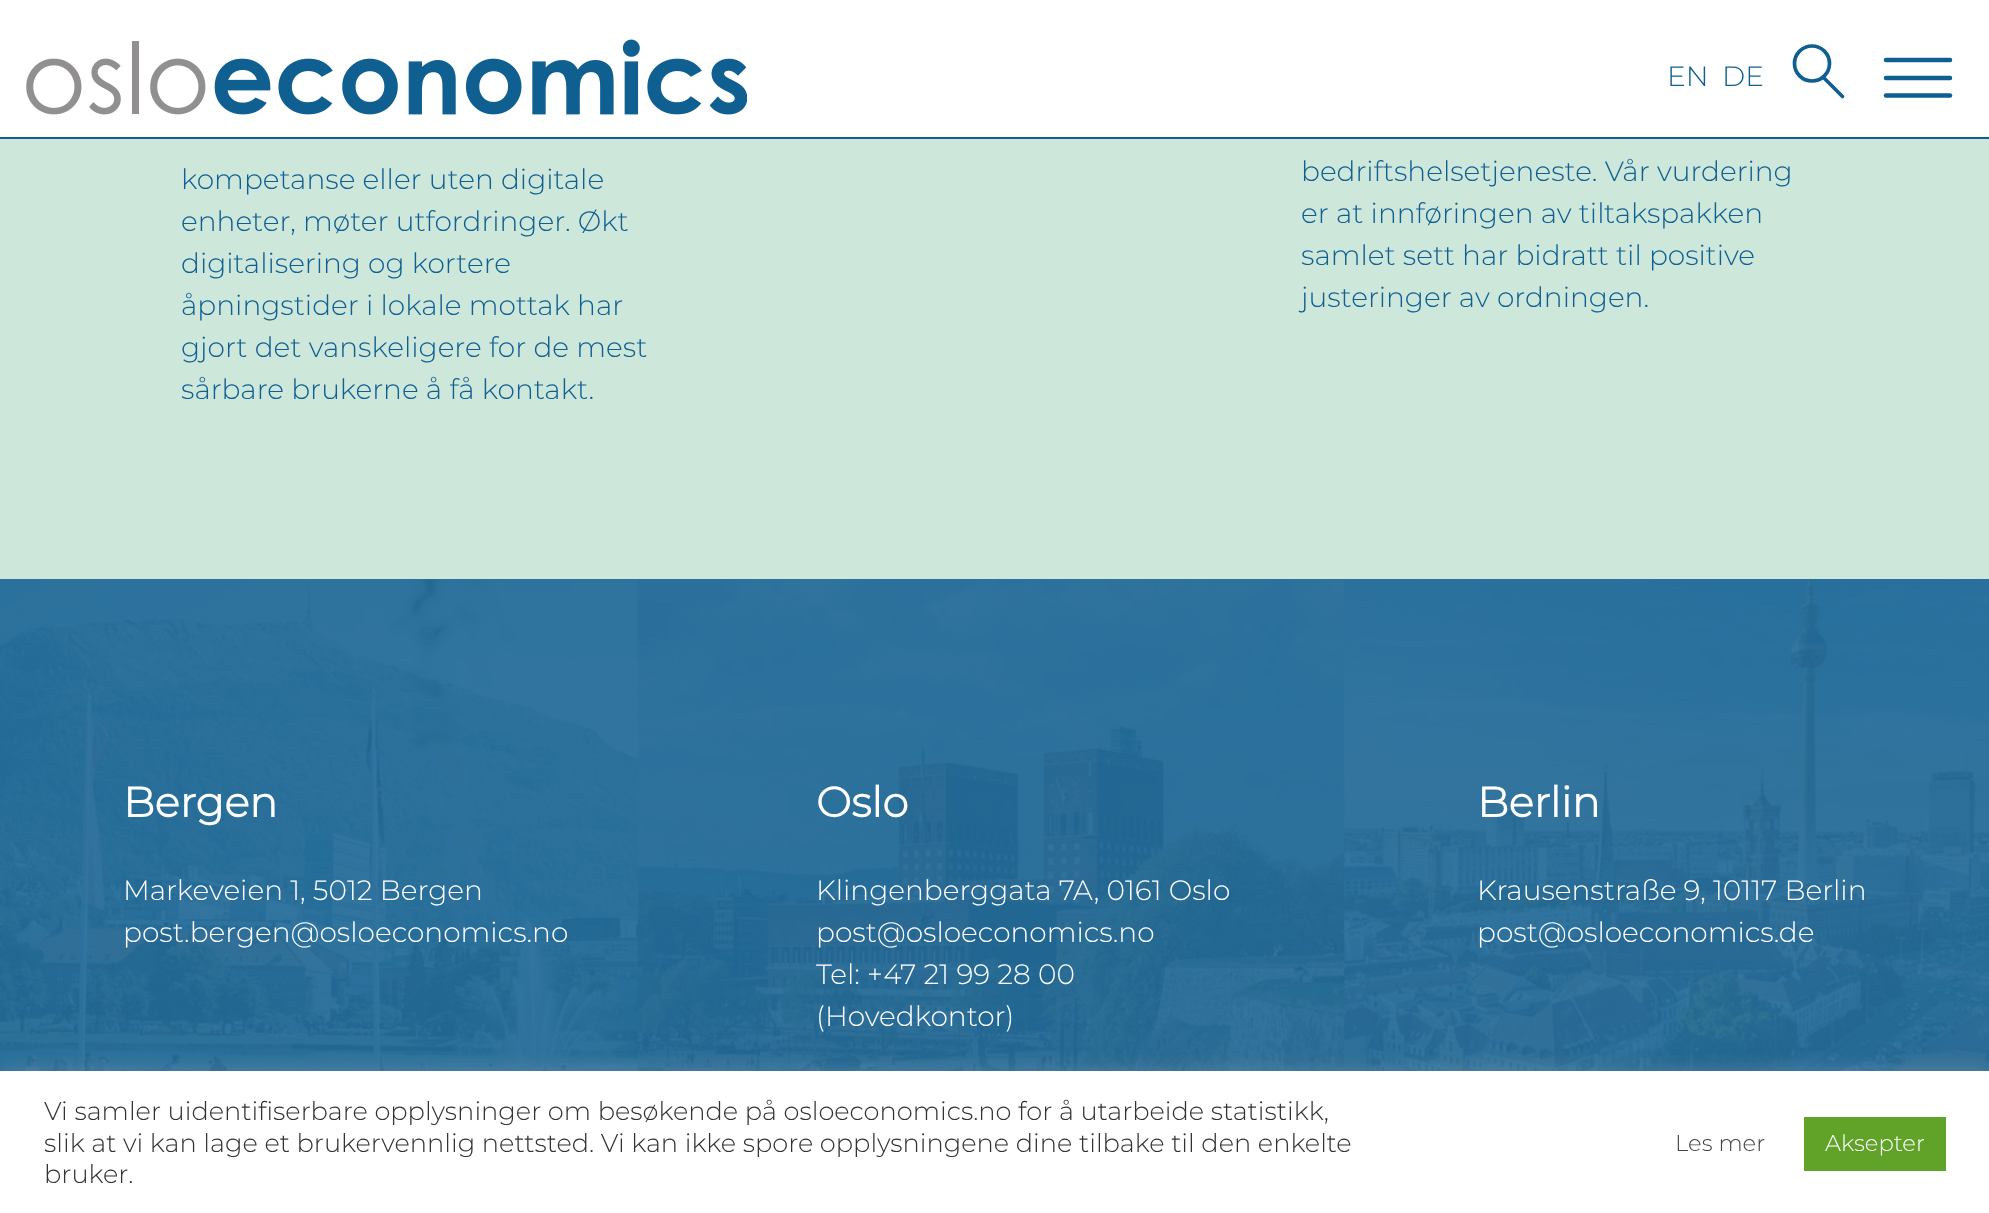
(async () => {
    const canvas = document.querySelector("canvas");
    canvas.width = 1989;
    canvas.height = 1213;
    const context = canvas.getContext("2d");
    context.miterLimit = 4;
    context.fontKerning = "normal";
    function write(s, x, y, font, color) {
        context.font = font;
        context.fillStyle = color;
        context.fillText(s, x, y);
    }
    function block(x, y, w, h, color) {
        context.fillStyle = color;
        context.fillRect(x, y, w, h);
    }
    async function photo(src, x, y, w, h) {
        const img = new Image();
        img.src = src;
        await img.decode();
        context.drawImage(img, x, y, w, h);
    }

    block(0, 0, 1989, 1213, "rgb(51, 119, 162)");
    block(0, 0, 1989, 137, "rgb(255, 255, 255)");
    block(0, 137, 1989, 2, "rgb(15, 95, 145)");
    await photo("media/1.png", 26, 39, 721, 76);
    write("EN", 1667, 86, "100 28px Montserrat", "rgb(15, 95, 145)");
    write("DE", 1722, 86, "100 28px Montserrat", "rgb(15, 95, 145)");
    context.beginPath();
    context.arc(1812, 63.5, 17.5, 0, Math.PI * 2);
    context.strokeStyle = "rgb(15, 95, 145)";
    context.lineWidth = 3.7;
    context.stroke();
    context.beginPath();
    context.moveTo(1823.5, 77.5);
    context.lineTo(1842.5, 96.5);
    context.lineCap = "round";
    context.stroke();
    context.beginPath();
    context.moveTo(1886, 60);
    context.lineTo(1950, 60);
    context.lineWidth = 4.5;
    context.stroke();
    context.beginPath();
    context.moveTo(1886, 78);
    context.lineTo(1950, 78);
    context.stroke();
    context.beginPath();
    context.moveTo(1886, 95.5);
    context.lineTo(1950, 95.5);
    context.stroke();
    block(0, 139, 1989, 440, "rgb(206, 231, 219)");
    write("kompetanse eller uten digitale", 181, 189, "100 28px Montserrat", "rgb(15, 95, 145)");
    write("enheter, møter utfordringer. Økt", 181, 231, "100 28px Montserrat", "rgb(15, 95, 145)");
    write("digitalisering og kortere", 181, 273, "100 28px Montserrat", "rgb(15, 95, 145)");
    write("åpningstider i lokale mottak har", 181, 315, "100 28px Montserrat", "rgb(15, 95, 145)");
    write("gjort det vanskeligere for de mest", 181, 357, "100 28px Montserrat", "rgb(15, 95, 145)");
    write("sårbare brukerne å få kontakt.", 181, 399, "100 28px Montserrat", "rgb(15, 95, 145)");
    write("bedriftshelsetjeneste. Vår vurdering", 1301, 181, "100 28px Montserrat", "rgb(15, 95, 145)");
    write("er at innføringen av tiltakspakken", 1301, 223, "100 28px Montserrat", "rgb(15, 95, 145)");
    write("samlet sett har bidratt til positive", 1301, 265, "100 28px Montserrat", "rgb(15, 95, 145)");
    write("justeringer av ordningen.", 1301, 307, "100 28px Montserrat", "rgb(15, 95, 145)");
    await photo("media/2.png", 0, 579, 1989, 492);
    write("Bergen", 123, 817, "bold 42px Montserrat", "rgb(255, 255, 255)");
    write("Markeveien 1, 5012 Bergen", 123, 900, "100 28px Montserrat", "rgb(255, 255, 255)");
    write("post.bergen@osloeconomics.no", 123, 942, "100 28px Montserrat", "rgb(255, 255, 255)");
    write("Oslo", 816, 817, "bold 42px Montserrat", "rgb(255, 255, 255)");
    write("Klingenberggata 7A, 0161 Oslo", 816, 900, "100 28px Montserrat", "rgb(255, 255, 255)");
    write("post@osloeconomics.no", 816, 942, "100 28px Montserrat", "rgb(255, 255, 255)");
    write("Tel: +47 21 99 28 00", 816, 984, "100 28px Montserrat", "rgb(255, 255, 255)");
    write("(Hovedkontor)", 816, 1026, "100 28px Montserrat", "rgb(255, 255, 255)");
    write("Berlin", 1477, 817, "bold 42px Montserrat", "rgb(255, 255, 255)");
    write("Krausenstraße 9, 10117 Berlin", 1477, 900, "100 28px Montserrat", "rgb(255, 255, 255)");
    write("post@osloeconomics.de", 1477, 942, "100 28px Montserrat", "rgb(255, 255, 255)");
    context.fillStyle = "rgba(172, 171, 171, 0.3)";
    context.filter = "blur(9px)";
    context.beginPath();
    context.rect(0, 1069, 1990, 144);
    context.fill();
    context.filter = "none";
    block(0, 1071, 1989, 142, "rgb(255, 255, 255)");
    write("Vi samler uidentifiserbare opplysninger om besøkende på osloeconomics.no for å utarbeide statistikk,", 44, 1120, "100 25.67px Montserrat", "rgb(51, 51, 51)");
    write("slik at vi kan lage et brukervennlig nettsted. Vi kan ikke spore opplysningene dine tilbake til den enkelte", 44, 1152, "100 25.67px Montserrat", "rgb(51, 51, 51)");
    write("bruker.", 44, 1183, "100 25.67px Montserrat", "rgb(51, 51, 51)");
    write("Les mer", 1675, 1151, "100 22.75px Montserrat", "rgb(68, 68, 68)");
    block(1804, 1117, 142, 54, "rgb(97, 162, 41)");
    write("Aksepter", 1825, 1151, "100 22.75px Montserrat", "rgb(255, 255, 255)");
})();
